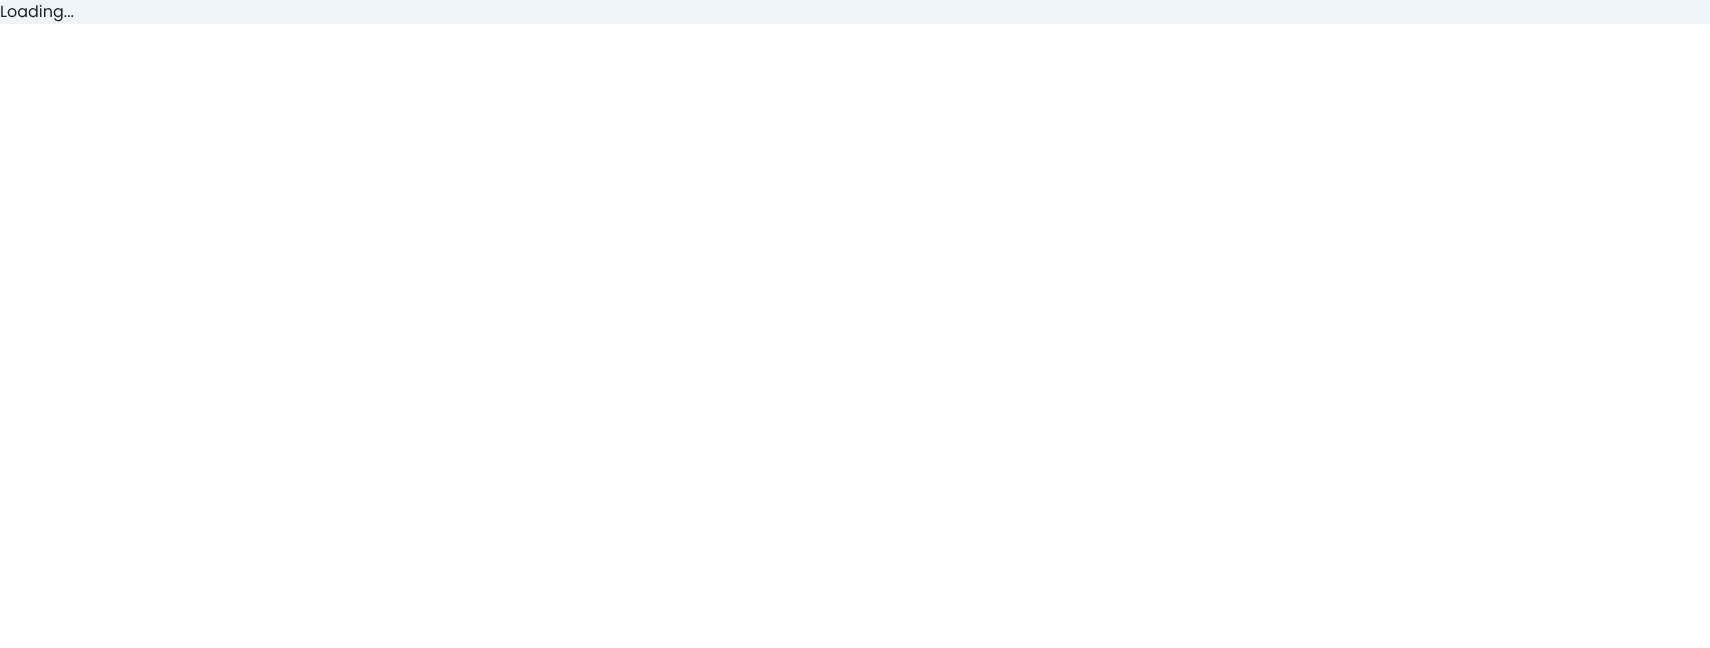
(async () => {
    const canvas = document.querySelector("canvas");
    canvas.width = 1710;
    canvas.height = 648;
    const context = canvas.getContext("2d");
    context.miterLimit = 4;
    context.fontKerning = "normal";
    function write(s, x, y, font, color) {
        context.font = font;
        context.fillStyle = color;
        context.fillText(s, x, y);
    }
    function block(x, y, w, h, color) {
        context.fillStyle = color;
        context.fillRect(x, y, w, h);
    }

    block(0, 0, 1710, 648, "rgb(255, 255, 255)");
    block(0, 0, 1710, 24, "rgb(238, 245, 249)");
    write("Loading...", 0, 17, "16px Poppins", "rgb(33, 37, 41)");
})();
